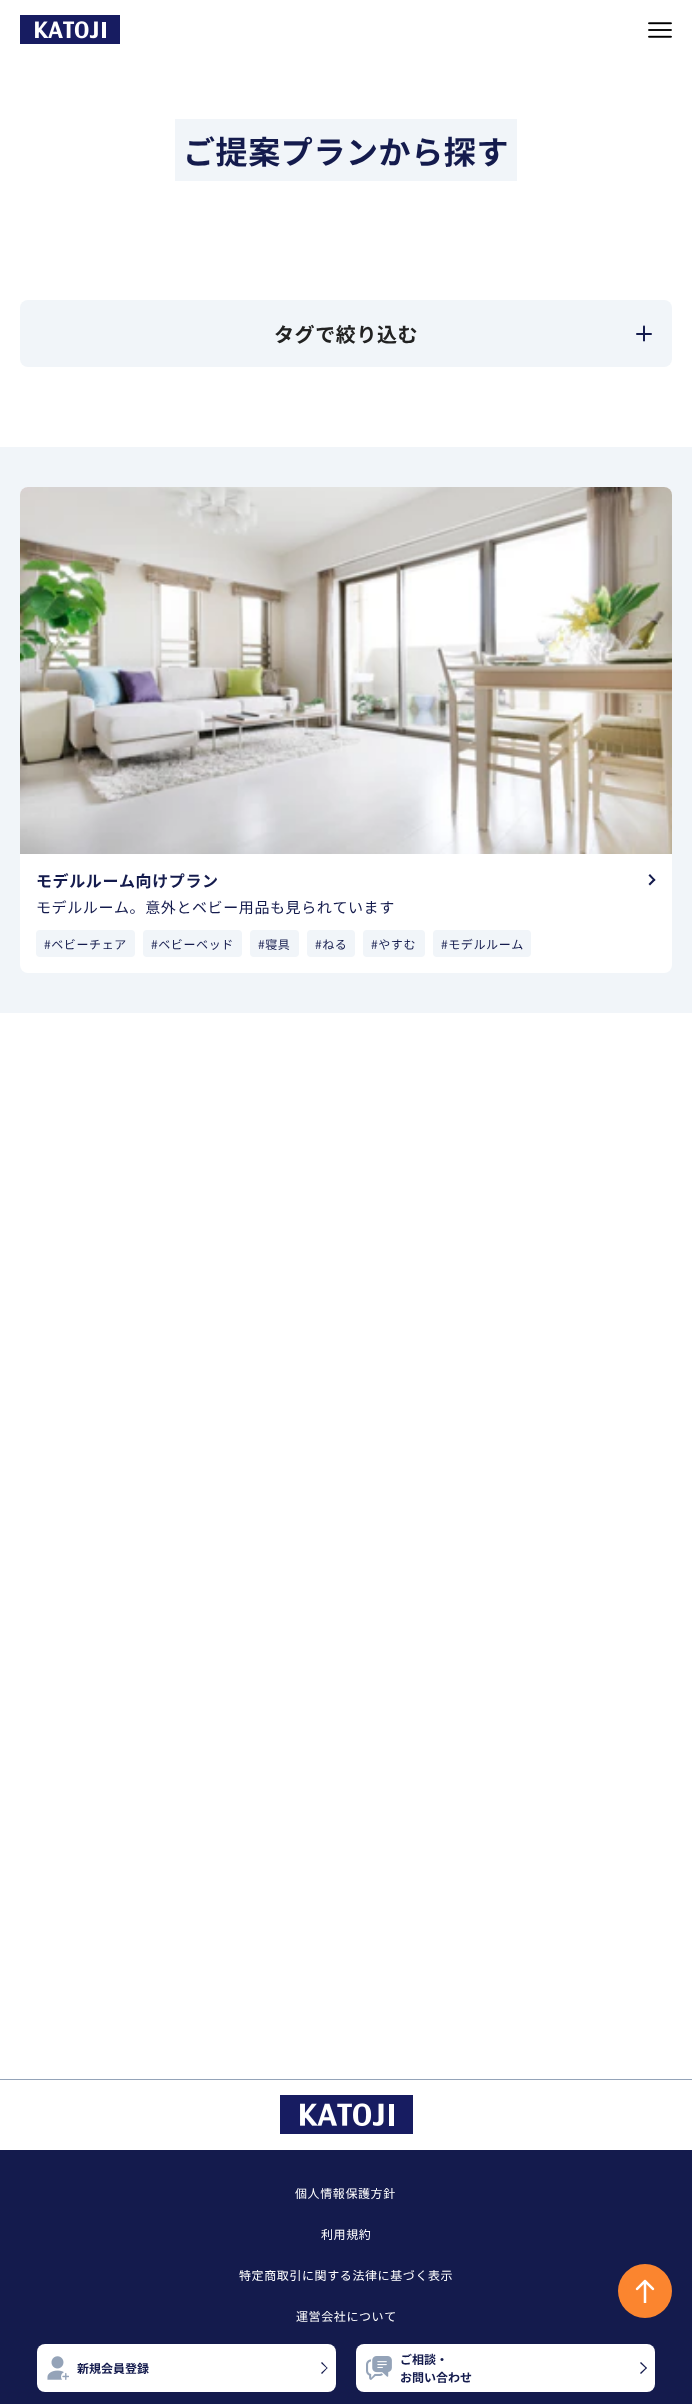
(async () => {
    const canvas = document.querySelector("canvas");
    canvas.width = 692;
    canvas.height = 2404;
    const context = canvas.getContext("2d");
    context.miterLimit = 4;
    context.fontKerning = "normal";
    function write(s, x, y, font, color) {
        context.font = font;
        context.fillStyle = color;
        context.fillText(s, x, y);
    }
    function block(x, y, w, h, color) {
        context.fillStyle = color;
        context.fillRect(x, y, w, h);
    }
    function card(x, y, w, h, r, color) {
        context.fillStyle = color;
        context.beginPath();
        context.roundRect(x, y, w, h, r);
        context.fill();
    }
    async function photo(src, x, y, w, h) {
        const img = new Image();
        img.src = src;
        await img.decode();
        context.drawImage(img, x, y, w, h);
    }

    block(0, 0, 692, 2404, "rgb(255, 255, 255)");
    await photo("media/1.png", 20, 15, 100, 29);
    await photo("media/2.png", 648, 22, 24, 16);
    block(175, 119, 342, 62, "rgb(241, 245, 249)");
    context.letterSpacing = "0.6px";
    write("ご提案プランから探す", 183, 164, "bold 32px Noto Sans JP", "rgb(20, 27, 77)");
    card(20, 300, 652, 67, 8, "rgb(241, 245, 249)");
    write("タグで絞り込む", 274, 342, "bold 20px Noto Sans JP", "rgb(34, 34, 34)");
    context.fillStyle = "rgb(20, 27, 77)";
    context.beginPath();
    context.moveTo(645, 326.5);
    context.lineTo(645, 341);
    context.bezierCurveTo(644.5, 341.5, 643.5, 341.5, 643, 341);
    context.lineTo(643, 326.5);
    context.bezierCurveTo(643, 325, 645, 325, 645, 326.5);
    context.closePath();
    context.fill();
    card(636, 333, 16, 2, 1, "rgb(20, 27, 77)");
    block(0, 447, 692, 566, "rgb(241, 245, 249)");
    card(20, 487, 652, 486, 8, "rgb(255, 255, 255)");
    await photo("media/3.png", 20, 487, 652, 367);
    write("モデルルーム向けプラン", 36, 887, "bold 16px Noto Sans JP", "rgb(20, 27, 77)");
    context.beginPath();
    context.moveTo(650, 874);
    context.lineTo(655.5, 880);
    context.lineTo(654, 881);
    context.lineTo(648.5, 875.5);
    context.closePath();
    context.fill();
    context.beginPath();
    context.moveTo(654, 878.5);
    context.lineTo(655.5, 880);
    context.lineTo(650, 885.5);
    context.lineTo(648.5, 884);
    context.closePath();
    context.fill();
    write("モデルルーム。意外とベビー用品も見られています", 36, 913, "15px Noto Sans JP", "rgb(20, 27, 77)");
    card(36, 930, 99, 27, 4, "rgb(241, 245, 249)");
    write("#ベビーチェア", 44, 949, "12px Noto Sans JP", "rgb(20, 27, 77)");
    card(143, 930, 99, 27, 4, "rgb(241, 245, 249)");
    write("#ベビーベッド", 151, 949, "12px Noto Sans JP", "rgb(20, 27, 77)");
    card(250, 930, 49, 27, 4, "rgb(241, 245, 249)");
    write("#寝具", 258, 949, "12px Noto Sans JP", "rgb(20, 27, 77)");
    card(307, 930, 48, 27, 4, "rgb(241, 245, 249)");
    write("#ねる", 315, 949, "12px Noto Sans JP", "rgb(20, 27, 77)");
    card(363, 930, 62, 27, 4, "rgb(241, 245, 249)");
    write("#やすむ", 371, 949, "12px Noto Sans JP", "rgb(20, 27, 77)");
    card(433, 930, 98, 27, 4, "rgb(241, 245, 249)");
    write("#モデルルーム", 441, 949, "12px Noto Sans JP", "rgb(20, 27, 77)");
    block(0, 2079, 692, 1, "rgb(148, 163, 184)");
    await photo("media/4.png", 280, 2095, 133, 39);
    block(0, 2150, 692, 254, "rgb(20, 27, 77)");
    write("個人情報保護方針", 295, 2198, "12px Noto Sans JP", "rgb(255, 255, 255)");
    write("利用規約", 321, 2239, "12px Noto Sans JP", "rgb(255, 255, 255)");
    write("特定商取引に関する法律に基づく表示", 239, 2280, "12px Noto Sans JP", "rgb(255, 255, 255)");
    write("運営会社について", 296, 2321, "12px Noto Sans JP", "rgb(255, 255, 255)");
    context.fillStyle = "rgb(251, 133, 47)";
    context.beginPath();
    context.arc(645, 2291, 27, 0, Math.PI * 2);
    context.fill();
    await photo("media/5.png", 635, 2279, 20, 24);
    card(37, 2344, 299, 48, 8, "rgb(255, 255, 255)");
    await photo("media/6.png", 47, 2356, 22, 24);
    context.letterSpacing = "0px";
    write("新規会員登録", 77, 2373, "bold 12px Noto Sans JP", "rgb(20, 27, 77)");
    context.beginPath();
    context.moveTo(322, 2362);
    context.lineTo(327.5, 2368);
    context.lineTo(327, 2368.5);
    context.lineTo(321, 2363);
    context.closePath();
    context.fill();
    context.beginPath();
    context.moveTo(327, 2367.5);
    context.lineTo(327.5, 2368);
    context.lineTo(322, 2374);
    context.lineTo(321, 2373);
    context.closePath();
    context.fill();
    card(356, 2344, 299, 48, 8, "rgb(255, 255, 255)");
    await photo("media/7.png", 366, 2356, 26, 24);
    write("ご相談・", 400, 2364, "bold 12px Noto Sans JP", "rgb(20, 27, 77)");
    write("お問い合わせ", 400, 2382, "bold 12px Noto Sans JP", "rgb(20, 27, 77)");
    context.beginPath();
    context.moveTo(641, 2362);
    context.lineTo(647, 2368);
    context.lineTo(646, 2368.5);
    context.lineTo(640, 2363);
    context.closePath();
    context.fill();
    context.beginPath();
    context.moveTo(646, 2367.5);
    context.lineTo(647, 2368);
    context.lineTo(641, 2374);
    context.lineTo(640, 2373);
    context.closePath();
    context.fill();
})();
